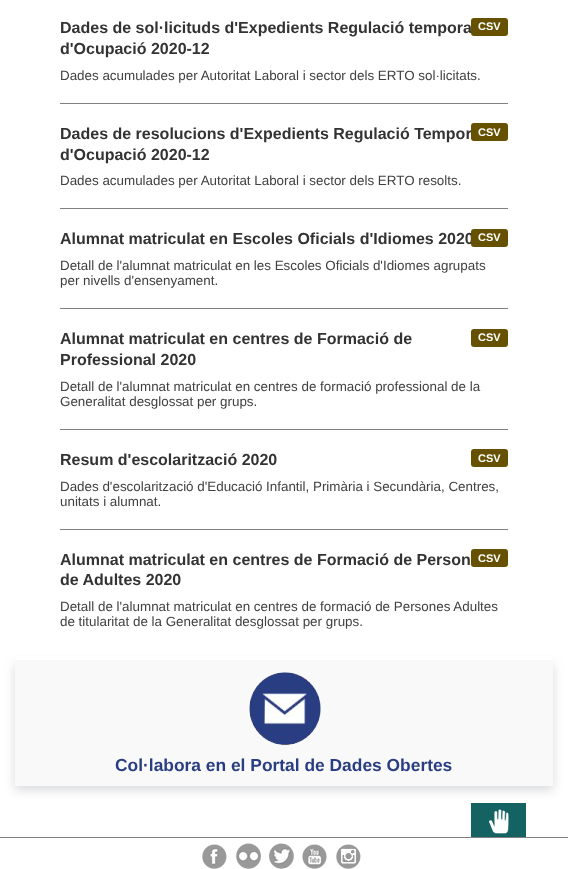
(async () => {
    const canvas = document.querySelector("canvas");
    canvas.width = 568;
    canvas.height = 869;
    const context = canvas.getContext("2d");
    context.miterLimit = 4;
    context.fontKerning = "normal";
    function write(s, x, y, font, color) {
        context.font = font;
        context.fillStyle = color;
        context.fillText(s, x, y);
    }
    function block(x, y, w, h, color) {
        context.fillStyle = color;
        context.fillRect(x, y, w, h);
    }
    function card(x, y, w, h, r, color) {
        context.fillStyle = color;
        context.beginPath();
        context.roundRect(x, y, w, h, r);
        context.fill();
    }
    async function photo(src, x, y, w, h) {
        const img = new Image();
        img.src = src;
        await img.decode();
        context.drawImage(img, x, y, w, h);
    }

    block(0, 0, 568, 869, "rgb(255, 255, 255)");
    context.fillStyle = "rgba(41, 45, 55, 0.18)";
    context.filter = "blur(5.5px)";
    context.beginPath();
    context.rect(15, 664, 538, 126);
    context.fill();
    context.filter = "none";
    block(15, 656, 538, 4, "rgb(255, 255, 255)");
    block(60, 103, 448, 1, "rgb(128, 128, 128)");
    write("Dades de sol·licituds d'Expedients Regulació tempora", 60, 33, "bold 16px Liberation Sans", "rgb(51, 51, 51)");
    write("d'Ocupació 2020-12", 60, 54, "bold 16px Liberation Sans", "rgb(51, 51, 51)");
    card(471, 18, 37, 18, 3, "rgb(101, 81, 0)");
    write("CSV", 478, 30, "bold 11px Liberation Sans", "rgb(255, 255, 255)");
    write("Dades acumulades per Autoritat Laboral i sector dels ERTO sol·licitats.", 60, 80, "13.4px Liberation Sans", "rgb(65, 64, 66)");
    block(60, 208, 448, 1, "rgb(128, 128, 128)");
    write("Dades de resolucions d'Expedients Regulació Tempor", 60, 139, "bold 16px Liberation Sans", "rgb(51, 51, 51)");
    write("d'Ocupació 2020-12", 60, 160, "bold 16px Liberation Sans", "rgb(51, 51, 51)");
    card(471, 123, 37, 18, 3, "rgb(101, 81, 0)");
    write("CSV", 478, 136, "bold 11px Liberation Sans", "rgb(255, 255, 255)");
    write("Dades acumulades per Autoritat Laboral i sector dels ERTO resolts.", 60, 185, "13.4px Liberation Sans", "rgb(65, 64, 66)");
    block(60, 308, 448, 1, "rgb(128, 128, 128)");
    write("Alumnat matriculat en Escoles Oficials d'Idiomes 2020", 60, 244, "bold 16px Liberation Sans", "rgb(51, 51, 51)");
    card(471, 229, 37, 18, 3, "rgb(101, 81, 0)");
    write("CSV", 478, 241, "bold 11px Liberation Sans", "rgb(255, 255, 255)");
    write("Detall de l'alumnat matriculat en les Escoles Oficials d'Idiomes agrupats", 60, 270, "13.4px Liberation Sans", "rgb(65, 64, 66)");
    write("per nivells d'ensenyament.", 60, 285, "13.4px Liberation Sans", "rgb(65, 64, 66)");
    block(60, 429, 448, 1, "rgb(128, 128, 128)");
    write("Alumnat matriculat en centres de Formació de", 60, 344, "bold 16px Liberation Sans", "rgb(51, 51, 51)");
    write("Professional 2020", 60, 365, "bold 16px Liberation Sans", "rgb(51, 51, 51)");
    card(471, 329, 37, 18, 3, "rgb(101, 81, 0)");
    write("CSV", 478, 341, "bold 11px Liberation Sans", "rgb(255, 255, 255)");
    write("Detall de l'alumnat matriculat en centres de formació professional de la", 60, 391, "13.4px Liberation Sans", "rgb(65, 64, 66)");
    write("Generalitat desglossat per grups.", 60, 406, "13.4px Liberation Sans", "rgb(65, 64, 66)");
    block(60, 529, 448, 1, "rgb(128, 128, 128)");
    write("Resum d'escolarització 2020", 60, 465, "bold 16px Liberation Sans", "rgb(51, 51, 51)");
    card(471, 449, 37, 18, 3, "rgb(101, 81, 0)");
    write("CSV", 478, 462, "bold 11px Liberation Sans", "rgb(255, 255, 255)");
    write("Dades d'escolarització d'Educació Infantil, Primària i Secundària, Centres,", 60, 491, "13.4px Liberation Sans", "rgb(65, 64, 66)");
    write("unitats i alumnat.", 60, 506, "13.4px Liberation Sans", "rgb(65, 64, 66)");
    write("Alumnat matriculat en centres de Formació de Person", 60, 565, "bold 16px Liberation Sans", "rgb(51, 51, 51)");
    write("de Adultes 2020", 60, 585, "bold 16px Liberation Sans", "rgb(51, 51, 51)");
    card(471, 549, 37, 18, 3, "rgb(101, 81, 0)");
    write("CSV", 478, 562, "bold 11px Liberation Sans", "rgb(255, 255, 255)");
    write("Detall de l'alumnat matriculat en centres de formació de Persones Adultes", 60, 611, "13.4px Liberation Sans", "rgb(65, 64, 66)");
    write("de titularitat de la Generalitat desglossat per grups.", 60, 626, "13.4px Liberation Sans", "rgb(65, 64, 66)");
    block(15, 660, 538, 126, "rgb(249, 249, 249)");
    await photo("media/1.png", 249, 672, 72, 74);
    write("Col·labora en el Portal de Dades Obertes", 115, 771, "bold 17.4px Liberation Sans", "rgb(41, 61, 130)");
    block(471, 803, 55, 34, "rgb(20, 99, 98)");
    await photo("media/2.png", 489, 809, 20, 25);
    block(0, 837, 568, 1, "rgb(128, 128, 128)");
    await photo("media/3.png", 202, 844, 25, 25);
    await photo("media/4.png", 236, 843, 25, 26);
    await photo("media/5.png", 269, 843, 25, 26);
    await photo("media/6.png", 302, 844, 25, 25);
    await photo("media/7.png", 336, 844, 25, 25);
})();
